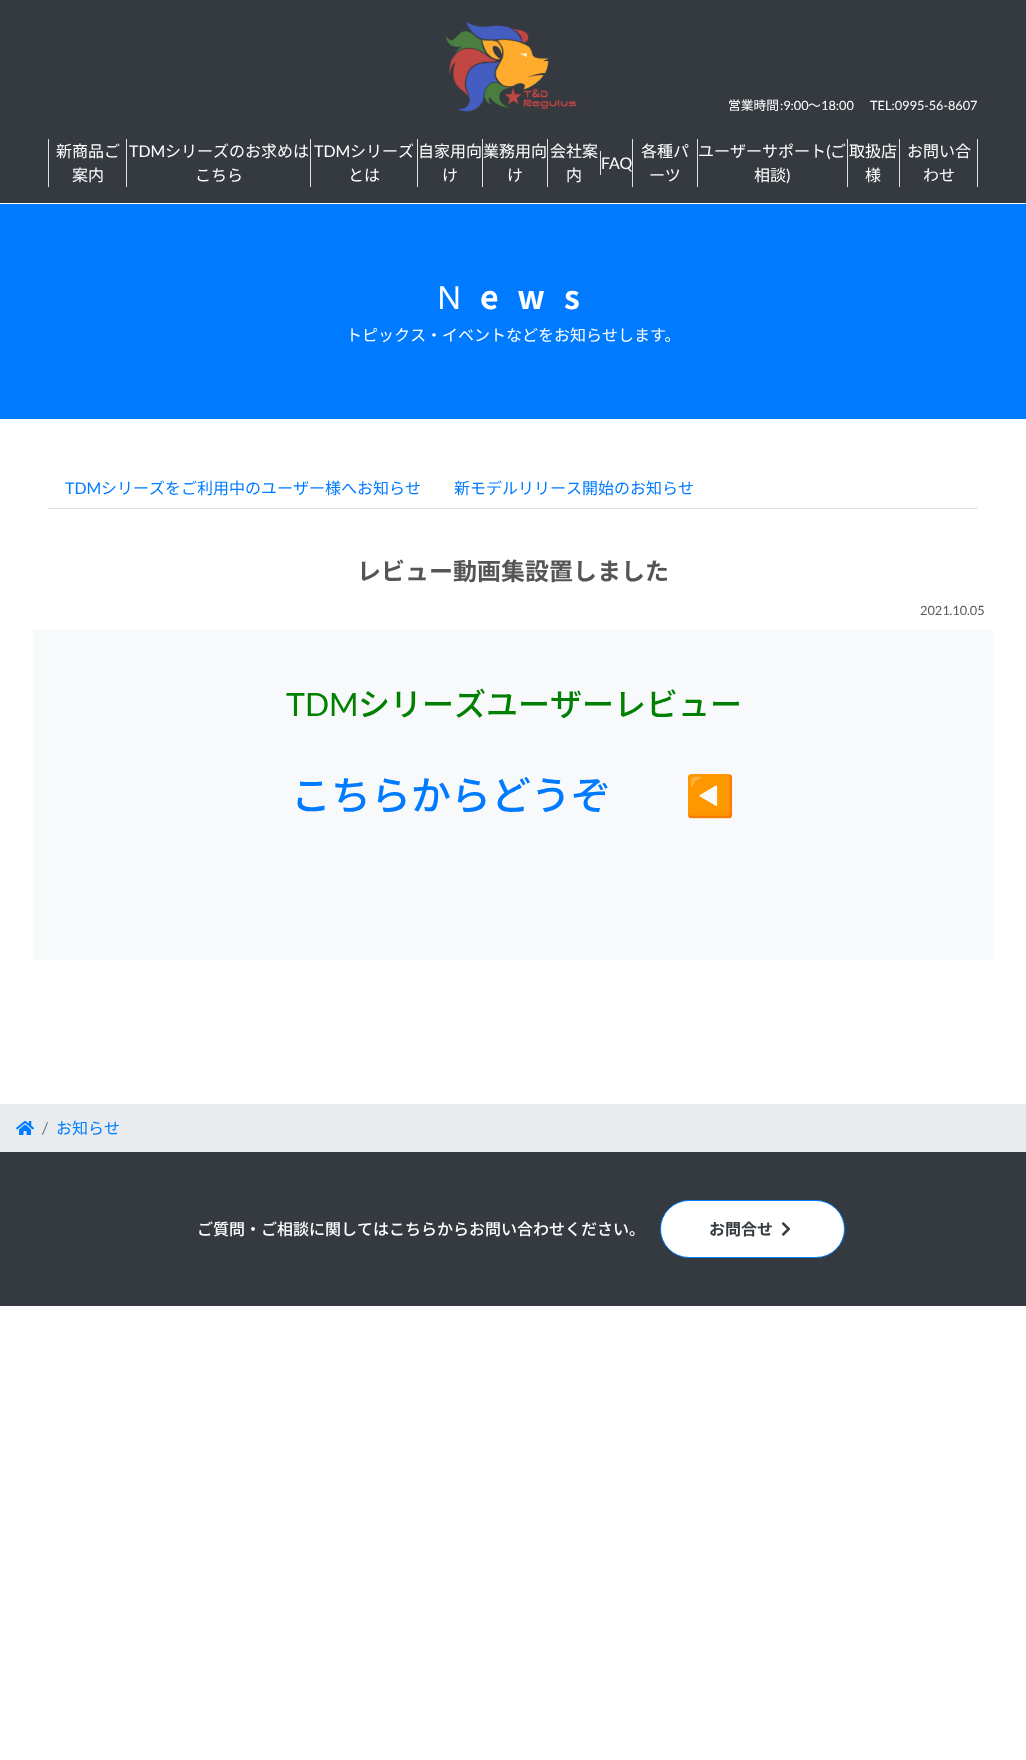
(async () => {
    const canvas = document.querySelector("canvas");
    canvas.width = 1026;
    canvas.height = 1760;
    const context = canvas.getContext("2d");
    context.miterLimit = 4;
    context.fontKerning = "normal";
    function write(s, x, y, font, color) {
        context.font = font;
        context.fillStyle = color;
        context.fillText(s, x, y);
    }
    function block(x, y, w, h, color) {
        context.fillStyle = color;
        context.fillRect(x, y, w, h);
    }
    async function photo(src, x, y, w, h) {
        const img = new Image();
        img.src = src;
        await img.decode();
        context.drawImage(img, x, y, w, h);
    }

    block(0, 0, 1026, 1760, "rgb(255, 255, 255)");
    block(0, 0, 1026, 203, "rgb(52, 58, 64)");
    await photo("media/1.png", 445, 21, 132, 91);
    write("営業時間", 728, 110, "12.75px Noto Sans JP", "rgb(255, 255, 255)");
    write(":9:00", 780, 110, "12.75px Lato", "rgb(255, 255, 255)");
    write("～", 808, 110, "12.75px Noto Sans JP", "rgb(255, 255, 255)");
    write("18:00", 821, 110, "12.75px Lato", "rgb(255, 255, 255)");
    write("TEL:0995-56-8607", 870, 110, "12.75px Lato", "rgb(255, 255, 255)");
    block(48, 139, 1, 48, "rgb(222, 226, 230)");
    write("新商品ご", 56, 157, "16px Noto Sans JP", "rgb(255, 255, 255)");
    write("案内", 72, 181, "16px Noto Sans JP", "rgb(255, 255, 255)");
    block(126, 139, 1, 48, "rgb(222, 226, 230)");
    write("TDM", 129, 157, "16px Lato", "rgb(255, 255, 255)");
    write("シリーズのお求めは", 165, 157, "16px Noto Sans JP", "rgb(255, 255, 255)");
    write("こちら", 195, 181, "16px Noto Sans JP", "rgb(255, 255, 255)");
    block(310, 139, 1, 48, "rgb(222, 226, 230)");
    write("TDM", 314, 157, "16px Lato", "rgb(255, 255, 255)");
    write("シリーズ", 350, 157, "16px Noto Sans JP", "rgb(255, 255, 255)");
    write("とは", 348, 181, "16px Noto Sans JP", "rgb(255, 255, 255)");
    block(417, 139, 1, 48, "rgb(222, 226, 230)");
    write("自家用向", 418, 157, "16px Noto Sans JP", "rgb(255, 255, 255)");
    write("け", 442, 181, "16px Noto Sans JP", "rgb(255, 255, 255)");
    block(482, 139, 1, 48, "rgb(222, 226, 230)");
    write("業務用向", 483, 157, "16px Noto Sans JP", "rgb(255, 255, 255)");
    write("け", 507, 181, "16px Noto Sans JP", "rgb(255, 255, 255)");
    block(547, 139, 1, 48, "rgb(222, 226, 230)");
    write("会社案", 550, 157, "16px Noto Sans JP", "rgb(255, 255, 255)");
    write("内", 566, 181, "16px Noto Sans JP", "rgb(255, 255, 255)");
    block(600, 151, 1, 24, "rgb(222, 226, 230)");
    write("FAQ", 601, 169, "16px Lato", "rgb(255, 255, 255)");
    block(632, 139, 1, 48, "rgb(222, 226, 230)");
    write("各種パ", 641, 157, "16px Noto Sans JP", "rgb(255, 255, 255)");
    write("ーツ", 649, 181, "16px Noto Sans JP", "rgb(255, 255, 255)");
    block(697, 139, 1, 48, "rgb(222, 226, 230)");
    write("ユーザーサポート", 698, 157, "16px Noto Sans JP", "rgb(255, 255, 255)");
    write("(", 826, 157, "16px Lato", "rgb(255, 255, 255)");
    write("ご", 830, 157, "16px Noto Sans JP", "rgb(255, 255, 255)");
    write("相談", 754, 181, "16px Noto Sans JP", "rgb(255, 255, 255)");
    write(")", 786, 181, "16px Lato", "rgb(255, 255, 255)");
    block(847, 139, 1, 48, "rgb(222, 226, 230)");
    write("取扱店", 849, 157, "16px Noto Sans JP", "rgb(255, 255, 255)");
    write("様", 865, 181, "16px Noto Sans JP", "rgb(255, 255, 255)");
    block(977, 139, 1, 48, "rgb(222, 226, 230)");
    block(899, 139, 1, 48, "rgb(222, 226, 230)");
    write("お問い合", 907, 157, "16px Noto Sans JP", "rgb(255, 255, 255)");
    write("わせ", 923, 181, "16px Noto Sans JP", "rgb(255, 255, 255)");
    block(0, 204, 1026, 215, "rgb(0, 123, 255)");
    context.letterSpacing = "19px";
    write("N", 437, 309, "32px Noto Sans", "rgb(255, 255, 255)");
    write("ews", 480, 309, "bold 32px Noto Sans JP", "rgb(255, 255, 255)");
    context.letterSpacing = "0px";
    write("トピックス・イベントなどをお知らせします。", 346, 341, "16px Noto Sans JP", "rgb(255, 255, 255)");
    block(48, 508, 930, 1, "rgb(222, 226, 230)");
    write("TDM", 65, 494, "16px Lato", "rgb(0, 123, 255)");
    write("シリーズをご利用中のユーザー様へお知らせ", 101, 494, "16px Noto Sans JP", "rgb(0, 123, 255)");
    write("新モデルリリース開始のお知らせ", 454, 494, "16px Noto Sans JP", "rgb(0, 123, 255)");
    write("レビュー動画集設置しました", 357, 580, "bold 24px Noto Sans JP", "rgb(85, 85, 85)");
    write("2021.10.05", 920, 615, "12.75px Lato", "rgb(85, 85, 85)");
    block(33, 629, 960, 331, "rgb(248, 249, 250)");
    write("TDM", 286, 716, "32px Lato", "rgb(0, 128, 0)");
    write("シリーズユーザーレビュー", 358, 716, "500 32px Noto Sans JP", "rgb(0, 128, 0)");
    write("こちらからどうぞ", 291, 810, "500 40px Noto Sans JP", "rgb(0, 123, 255)");
    write("◀️", 685, 810, "40px Noto Color Emoji", "rgb(255, 215, 0)");
    block(0, 1104, 1026, 48, "rgb(233, 236, 239)");
    await photo("media/2.png", 16, 1121, 18, 14);
    write("/", 42, 1134, "16px Lato", "rgb(108, 117, 125)");
    write("お知らせ", 56, 1134, "16px Noto Sans JP", "rgb(0, 123, 255)");
    block(0, 1152, 1026, 154, "rgb(52, 58, 64)");
    write("ご質問・ご相談に関してはこちらからお問い合わせください。", 197, 1235, "500 16px Noto Sans JP", "rgb(255, 255, 255)");
    context.beginPath();
    context.roundRect(660.5, 1200.5, 184, 57, 28.5);
    context.fill();
    context.strokeStyle = "rgb(0, 123, 255)";
    context.stroke();
    write("お問合せ", 709, 1235, "bold 16px Noto Sans JP", "rgb(52, 58, 64)");
    await photo("media/3.png", 781, 1222, 10, 14);
})();
